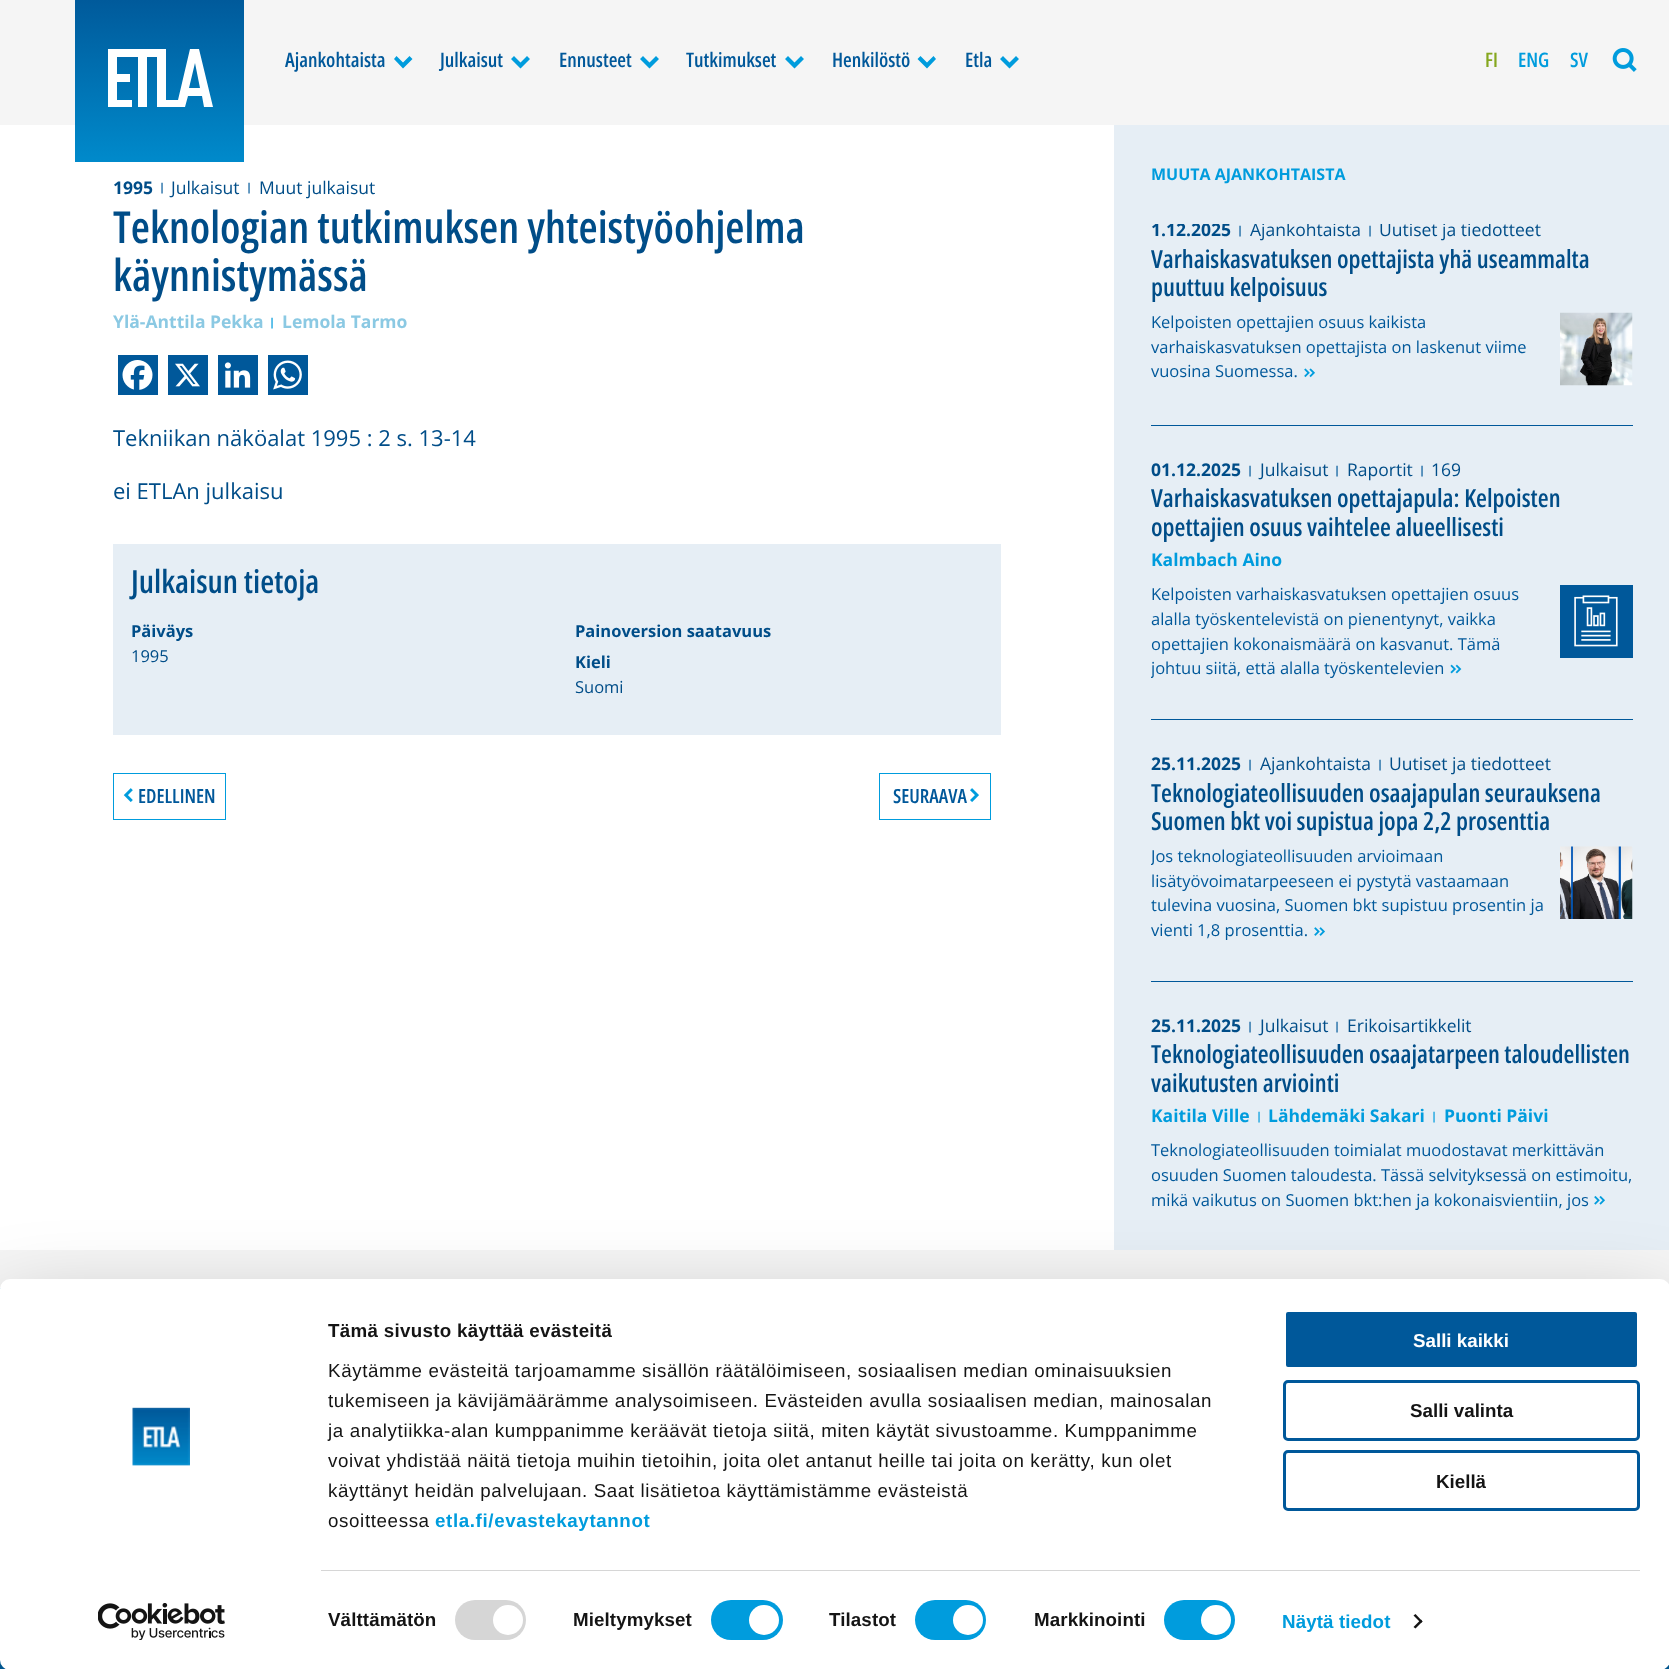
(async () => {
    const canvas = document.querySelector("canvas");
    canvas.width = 1669;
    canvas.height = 1669;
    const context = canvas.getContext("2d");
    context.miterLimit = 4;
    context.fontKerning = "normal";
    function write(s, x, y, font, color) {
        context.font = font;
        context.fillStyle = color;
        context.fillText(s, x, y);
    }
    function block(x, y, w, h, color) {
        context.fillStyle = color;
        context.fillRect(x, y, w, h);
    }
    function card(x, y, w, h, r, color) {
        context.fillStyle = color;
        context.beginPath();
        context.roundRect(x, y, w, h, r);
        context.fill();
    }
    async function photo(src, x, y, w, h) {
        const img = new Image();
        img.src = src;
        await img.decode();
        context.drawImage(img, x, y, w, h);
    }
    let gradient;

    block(0, 0, 1669, 1669, "rgb(245, 245, 245)");
    block(0, 125, 1114, 1125, "rgb(255, 255, 255)");
    gradient = context.createLinearGradient(161, 219, 161, -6.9);
    gradient.addColorStop(0, "rgb(0, 155, 220)");
    gradient.addColorStop(1, "rgb(0, 88, 153)");
    context.fillStyle = gradient;
    context.fillRect(75, 0, 169, 162);
    context.fillStyle = "rgb(255, 255, 255)";
    context.beginPath();
    context.moveTo(199, 49);
    context.lineTo(213, 107);
    context.lineTo(204, 107);
    context.lineTo(202, 96);
    context.lineTo(188, 96);
    context.lineTo(185, 107);
    context.lineTo(157, 107);
    context.lineTo(157, 57);
    context.lineTo(147, 57);
    context.lineTo(147, 107);
    context.lineTo(138, 107);
    context.lineTo(138, 57);
    context.lineTo(117, 57);
    context.lineTo(117, 74);
    context.lineTo(130, 74);
    context.lineTo(130, 82);
    context.lineTo(117, 82);
    context.lineTo(117, 100);
    context.lineTo(132, 100);
    context.lineTo(132, 107);
    context.lineTo(108, 107);
    context.lineTo(108, 49);
    context.lineTo(166, 49);
    context.lineTo(166, 100);
    context.lineTo(178, 100);
    context.lineTo(190, 49);
    context.closePath();
    context.moveTo(195, 63);
    context.lineTo(189, 88);
    context.lineTo(200, 88);
    context.closePath();
    context.fill();
    write("Ajankohtaista", 285, 67, "600 20px Open Sans", "rgb(0, 88, 154)");
    context.fillStyle = "rgb(0, 156, 221)";
    context.beginPath();
    context.moveTo(394, 59);
    context.lineTo(396.5, 56);
    context.lineTo(403, 62.5);
    context.lineTo(409.5, 56);
    context.lineTo(412.5, 59);
    context.lineTo(403, 68.5);
    context.closePath();
    context.fill();
    write("Julkaisut", 440, 67, "600 20px Open Sans", "rgb(0, 88, 154)");
    context.fillStyle = "rgb(0, 156, 221)";
    context.beginPath();
    context.moveTo(511, 59);
    context.lineTo(514, 56);
    context.lineTo(520.5, 62.5);
    context.lineTo(527, 56);
    context.lineTo(530, 59);
    context.lineTo(520.5, 68.5);
    context.closePath();
    context.fill();
    write("Ennusteet", 559, 67, "600 20px Open Sans", "rgb(0, 88, 154)");
    context.fillStyle = "rgb(0, 156, 221)";
    context.beginPath();
    context.moveTo(640, 59);
    context.lineTo(643, 56);
    context.lineTo(649.5, 62.5);
    context.lineTo(656, 56);
    context.lineTo(659, 59);
    context.lineTo(649.5, 68.5);
    context.closePath();
    context.fill();
    write("Tutkimukset", 686, 67, "600 20px Open Sans", "rgb(0, 88, 154)");
    context.fillStyle = "rgb(0, 156, 221)";
    context.beginPath();
    context.moveTo(785, 59);
    context.lineTo(788, 56);
    context.lineTo(794.5, 62.5);
    context.lineTo(801, 56);
    context.lineTo(804, 59);
    context.lineTo(794.5, 68.5);
    context.closePath();
    context.fill();
    write("Henkilöstö", 832, 67, "600 20px Open Sans", "rgb(0, 88, 154)");
    context.fillStyle = "rgb(0, 156, 221)";
    context.beginPath();
    context.moveTo(917.5, 59);
    context.lineTo(920.5, 56);
    context.lineTo(927, 62.5);
    context.lineTo(933.5, 56);
    context.lineTo(936, 59);
    context.lineTo(927, 68.5);
    context.closePath();
    context.fill();
    write("Etla", 965, 67, "600 20px Open Sans", "rgb(0, 88, 154)");
    context.fillStyle = "rgb(0, 156, 221)";
    context.beginPath();
    context.moveTo(1000, 59);
    context.lineTo(1003, 56);
    context.lineTo(1009.5, 62.5);
    context.lineTo(1016, 56);
    context.lineTo(1019, 59);
    context.lineTo(1009.5, 68.5);
    context.closePath();
    context.fill();
    write("FI", 1485, 67, "600 20px Open Sans", "rgb(133, 167, 30)");
    write("ENG", 1518, 67, "600 20px Open Sans", "rgb(0, 156, 221)");
    write("SV", 1570, 67, "600 20px Open Sans", "rgb(0, 156, 221)");
    await photo("media/1.png", 1612, 48, 25, 24);
    write("1995", 113, 194, "bold 17.5px Open Sans", "rgb(0, 77, 136)");
    write("|", 159, 191, "bold 11px Open Sans", "rgb(0, 88, 154)");
    write("Julkaisut", 171, 194, "17.5px Open Sans", "rgb(0, 77, 136)");
    write("|", 246, 191, "bold 11px Open Sans", "rgb(0, 88, 154)");
    write("Muut julkaisut", 259, 194, "17.5px Open Sans", "rgb(0, 77, 136)");
    write("Teknologian tutkimuksen yhteistyöohjelma", 113, 243, "600 44px Open Sans", "rgb(0, 77, 136)");
    write("käynnistymässä", 113, 291, "600 44px Open Sans", "rgb(0, 77, 136)");
    write("Ylä-Anttila Pekka", 113, 328, "bold 17.5px Open Sans", "rgb(139, 201, 227)");
    write("|", 269, 326, "bold 11px Open Sans", "rgb(0, 156, 221)");
    write("Lemola Tarmo", 282, 328, "bold 17.5px Open Sans", "rgb(139, 201, 227)");
    block(118, 355, 40, 40, "rgb(0, 88, 154)");
    await photo("media/2.png", 122, 360, 31, 30);
    block(168, 355, 40, 40, "rgb(0, 88, 154)");
    await photo("media/3.png", 175, 363, 25, 24);
    block(218, 355, 40, 40, "rgb(0, 88, 154)");
    await photo("media/4.png", 224, 362, 27, 26);
    block(268, 355, 40, 40, "rgb(0, 88, 154)");
    await photo("media/5.png", 273, 360, 29, 30);
    write("Tekniikan näköalat 1995 : 2 s. 13-14", 113, 446, "22px Open Sans", "rgb(0, 77, 136)");
    write("ei ETLAn julkaisu", 113, 499, "22px Open Sans", "rgb(0, 77, 136)");
    block(113, 544, 888, 191, "rgb(230, 238, 245)");
    write("Julkaisun tietoja", 131, 593, "600 32px Open Sans", "rgb(0, 77, 136)");
    write("Päiväys", 131, 637, "bold 16.5px Open Sans", "rgb(0, 77, 136)");
    write("1995", 131, 662, "16.5px Open Sans", "rgb(0, 77, 136)");
    write("Painoversion saatavuus", 575, 637, "bold 16.5px Open Sans", "rgb(0, 77, 136)");
    write("Kieli", 575, 668, "bold 16.5px Open Sans", "rgb(0, 77, 136)");
    write("Suomi", 575, 693, "16.5px Open Sans", "rgb(0, 77, 136)");
    context.strokeStyle = "rgb(0, 156, 221)";
    context.strokeRect(113.5, 773.5, 112, 46);
    await photo("media/6.png", 123, 788, 10, 14);
    write("EDELLINEN", 138, 803, "600 19.5px Open Sans", "rgb(0, 88, 154)");
    context.strokeRect(879.5, 773.5, 111, 46);
    write("SEURAAVA", 893, 803, "600 19.5px Open Sans", "rgb(0, 88, 154)");
    await photo("media/7.png", 970, 788, 9, 14);
    block(1114, 125, 555, 1125, "rgb(230, 238, 245)");
    write("MUUTA AJANKOHTAISTA", 1151, 180, "bold 16px Open Sans", "rgb(0, 156, 221)");
    context.save();
    context.beginPath();
    context.rect(1151, 224, 482, 20);
    context.clip();
    write("1.12.2025", 1151, 236, "bold 17.5px Open Sans", "rgb(0, 77, 136)");
    context.restore();
    write("|", 1237, 234, "bold 11px Open Sans", "rgb(0, 88, 154)");
    context.save();
    context.beginPath();
    context.rect(1151, 224, 482, 20);
    context.clip();
    write("Ajankohtaista", 1250, 236, "17.5px Open Sans", "rgb(0, 77, 136)");
    context.restore();
    write("|", 1367, 234, "bold 11px Open Sans", "rgb(0, 88, 154)");
    context.save();
    context.beginPath();
    context.rect(1151, 224, 482, 20);
    context.clip();
    write("Uutiset ja tiedotteet", 1379, 236, "17.5px Open Sans", "rgb(0, 77, 136)");
    context.restore();
    write("Varhaiskasvatuksen opettajista yhä useammalta", 1151, 268, "600 25px Open Sans", "rgb(0, 77, 136)");
    write("puuttuu kelpoisuus", 1151, 296, "600 25px Open Sans", "rgb(0, 77, 136)");
    write("Kelpoisten opettajien osuus kaikista", 1151, 328, "16.5px Open Sans", "rgb(0, 88, 154)");
    await photo("media/8.png", 1560, 312, 73, 74);
    write("varhaiskasvatuksen opettajista on laskenut viime", 1151, 353, "16.5px Open Sans", "rgb(0, 88, 154)");
    write("vuosina Suomessa.", 1151, 377, "16.5px Open Sans", "rgb(0, 88, 154)");
    await photo("media/9.png", 1304, 368, 11, 10);
    block(1151, 425, 482, 1, "rgb(0, 88, 154)");
    write("01.12.2025", 1151, 476, "bold 17.5px Open Sans", "rgb(0, 77, 136)");
    write("|", 1247, 474, "bold 11px Open Sans", "rgb(0, 88, 154)");
    write("Julkaisut", 1260, 476, "17.5px Open Sans", "rgb(0, 77, 136)");
    write("|", 1334, 474, "bold 11px Open Sans", "rgb(0, 88, 154)");
    write("Raportit", 1347, 476, "17.5px Open Sans", "rgb(0, 77, 136)");
    write("|", 1419, 474, "bold 11px Open Sans", "rgb(0, 88, 154)");
    write("169", 1431, 476, "17.5px Open Sans", "rgb(0, 77, 136)");
    write("Varhaiskasvatuksen opettajapula: Kelpoisten", 1151, 507, "600 25px Open Sans", "rgb(0, 77, 136)");
    write("opettajien osuus vaihtelee alueellisesti", 1151, 536, "600 25px Open Sans", "rgb(0, 77, 136)");
    write("Kalmbach Aino", 1151, 566, "bold 17.5px Open Sans", "rgb(0, 156, 221)");
    write("Kelpoisten varhaiskasvatuksen opettajien osuus", 1151, 600, "16.5px Open Sans", "rgb(0, 88, 154)");
    await photo("media/10.png", 1560, 585, 73, 73);
    write("alalla työskentelevistä on pienentynyt, vaikka", 1151, 625, "16.5px Open Sans", "rgb(0, 88, 154)");
    write("opettajien kokonaismäärä on kasvanut. Tämä", 1151, 650, "16.5px Open Sans", "rgb(0, 88, 154)");
    context.save();
    context.beginPath();
    context.rect(1151, 426, 482, 255);
    context.clip();
    write("johtuu siitä, että alalla", 1151, 674, "16.5px Open Sans", "rgb(0, 88, 154)");
    context.restore();
    write("työskentelevien", 1324, 674, "16.5px Open Sans", "rgb(0, 88, 154)");
    await photo("media/11.png", 1450, 664, 12, 10);
    block(1151, 719, 482, 1, "rgb(0, 88, 154)");
    write("25.11.2025", 1151, 770, "bold 17.5px Open Sans", "rgb(0, 77, 136)");
    write("|", 1247, 768, "bold 11px Open Sans", "rgb(0, 88, 154)");
    write("Ajankohtaista", 1260, 770, "17.5px Open Sans", "rgb(0, 77, 136)");
    write("|", 1377, 768, "bold 11px Open Sans", "rgb(0, 88, 154)");
    write("Uutiset ja tiedotteet", 1389, 770, "17.5px Open Sans", "rgb(0, 77, 136)");
    write("Teknologiateollisuuden osaajapulan seurauksena", 1151, 802, "600 25px Open Sans", "rgb(0, 77, 136)");
    write("Suomen bkt voi supistua jopa 2,2 prosenttia", 1151, 830, "600 25px Open Sans", "rgb(0, 77, 136)");
    context.save();
    context.beginPath();
    context.rect(1151, 720, 482, 224);
    context.clip();
    write("Jos teknologiateollisuuden arvioimaan", 1151, 862, "16.5px Open Sans", "rgb(0, 88, 154)");
    context.restore();
    await photo("media/12.png", 1560, 846, 73, 73);
    write("lisätyövoimatarpeeseen ei pystytä vastaamaan", 1151, 887, "16.5px Open Sans", "rgb(0, 88, 154)");
    write("tulevina vuosina, Suomen bkt supistuu prosentin ja", 1151, 911, "16.5px Open Sans", "rgb(0, 88, 154)");
    write("vienti 1,8 prosenttia.", 1151, 936, "16.5px Open Sans", "rgb(0, 88, 154)");
    await photo("media/13.png", 1314, 927, 11, 9);
    block(1151, 981, 482, 1, "rgb(0, 88, 154)");
    write("25.11.2025", 1151, 1032, "bold 17.5px Open Sans", "rgb(0, 77, 136)");
    write("|", 1247, 1030, "bold 11px Open Sans", "rgb(0, 88, 154)");
    write("Julkaisut", 1260, 1032, "17.5px Open Sans", "rgb(0, 77, 136)");
    write("|", 1334, 1030, "bold 11px Open Sans", "rgb(0, 88, 154)");
    write("Erikoisartikkelit", 1347, 1032, "17.5px Open Sans", "rgb(0, 77, 136)");
    write("Teknologiateollisuuden osaajatarpeen taloudellisten", 1151, 1063, "600 25px Open Sans", "rgb(0, 77, 136)");
    write("vaikutusten arviointi", 1151, 1092, "600 25px Open Sans", "rgb(0, 77, 136)");
    write("Kaitila Ville", 1151, 1122, "bold 17.5px Open Sans", "rgb(0, 156, 221)");
    write("|", 1256, 1120, "bold 11px Open Sans", "rgb(0, 156, 221)");
    write("Lähdemäki Sakari", 1268, 1122, "bold 17.5px Open Sans", "rgb(0, 156, 221)");
    write("|", 1431, 1120, "bold 11px Open Sans", "rgb(0, 156, 221)");
    write("Puonti Päivi", 1444, 1122, "bold 17.5px Open Sans", "rgb(0, 156, 221)");
    write("Teknologiateollisuuden toimialat muodostavat merkittävän", 1151, 1156, "16.5px Open Sans", "rgb(0, 88, 154)");
    write("osuuden Suomen taloudesta. Tässä selvityksessä on estimoitu,", 1151, 1181, "16.5px Open Sans", "rgb(0, 88, 154)");
    write("mikä vaikutus on Suomen bkt:hen ja kokonaisvientiin, jos", 1151, 1206, "16.5px Open Sans", "rgb(0, 88, 154)");
    await photo("media/14.png", 1594, 1196, 11, 9);
    gradient = context.createLinearGradient(835, 1288, 835, 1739);
    gradient.addColorStop(0.01, "rgb(0, 156, 221)");
    gradient.addColorStop(1, "rgb(0, 88, 154)");
    context.fillStyle = gradient;
    context.fillRect(0, 1288, 1669, 381);
    context.fillStyle = "rgba(0, 0, 0, 0.3)";
    context.filter = "blur(44px)";
    context.beginPath();
    context.roundRect(0, 1316, 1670, 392, 10);
    context.fill();
    context.filter = "none";
    card(0, 1279, 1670, 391, 10, "rgb(255, 255, 255)");
    await photo("media/15.png", 132, 1407, 58, 59);
    await photo("media/16.png", 98, 1603, 127, 37);
    context.letterSpacing = "0.3px";
    write("Tämä sivusto käyttää evästeitä", 328, 1337, "bold 18.75px Liberation Sans", "rgb(20, 20, 20)");
    context.letterSpacing = "0.62px";
    write("Käytämme evästeitä tarjoamamme sisällön räätälöimiseen, sosiaalisen median ominaisuuksien", 328, 1377, "18.75px Liberation Sans", "rgb(20, 20, 20)");
    write("tukemiseen ja kävijämäärämme analysoimiseen. Evästeiden avulla sosiaalisen median, mainosalan", 328, 1407, "18.75px Liberation Sans", "rgb(20, 20, 20)");
    write("ja analytiikka-alan kumppanimme keräävät tietoja siitä, miten käytät sivustoamme. Kumppanimme", 328, 1437, "18.75px Liberation Sans", "rgb(20, 20, 20)");
    write("voivat yhdistää näitä tietoja muihin tietoihin, joita olet antanut heille tai joita on kerätty, kun olet", 328, 1467, "18.75px Liberation Sans", "rgb(20, 20, 20)");
    write("käyttänyt heidän palvelujaan. Saat lisätietoa käyttämistämme evästeistä", 328, 1497, "18.75px Liberation Sans", "rgb(20, 20, 20)");
    write("osoitteessa", 328, 1527, "18.75px Liberation Sans", "rgb(20, 20, 20)");
    write("etla.fi/evastekaytannot", 435, 1527, "bold 18.75px Liberation Sans", "rgb(0, 156, 221)");
    block(321, 1570, 1319, 1, "rgb(214, 214, 214)");
    context.letterSpacing = "0.1px";
    write("Välttämätön", 328, 1626, "bold 18.75px Liberation Sans", "rgb(20, 20, 20)");
    card(455, 1600, 71, 40, 20, "rgb(214, 214, 214)");
    context.fillStyle = "rgb(255, 255, 255)";
    context.beginPath();
    context.arc(508, 1620, 15, 0, Math.PI * 2);
    context.fill();
    write("Mieltymykset", 573, 1626, "bold 18.75px Liberation Sans", "rgb(20, 20, 20)");
    card(711, 1600, 72, 40, 20, "rgb(0, 156, 221)");
    context.fillStyle = "rgb(255, 255, 255)";
    context.beginPath();
    context.arc(764, 1620, 15, 0, Math.PI * 2);
    context.fill();
    write("Tilastot", 829, 1626, "bold 18.75px Liberation Sans", "rgb(20, 20, 20)");
    card(915, 1600, 71, 40, 20, "rgb(0, 156, 221)");
    context.fillStyle = "rgb(255, 255, 255)";
    context.beginPath();
    context.arc(968, 1620, 15, 0, Math.PI * 2);
    context.fill();
    write("Markkinointi", 1034, 1626, "bold 18.75px Liberation Sans", "rgb(20, 20, 20)");
    card(1164, 1600, 71, 40, 20, "rgb(0, 156, 221)");
    context.fillStyle = "rgb(255, 255, 255)";
    context.beginPath();
    context.arc(1216, 1620, 15, 0, Math.PI * 2);
    context.fill();
    write("Näytä tiedot", 1282, 1628, "bold 18.75px Liberation Sans", "rgb(0, 156, 221)");
    context.fillStyle = "rgb(20, 20, 20)";
    context.beginPath();
    context.moveTo(1415.5, 1614);
    context.lineTo(1422.5, 1621.5);
    context.lineTo(1421, 1623);
    context.lineTo(1413.5, 1615.5);
    context.closePath();
    context.fill();
    context.beginPath();
    context.moveTo(1421, 1619.5);
    context.lineTo(1422.5, 1621.5);
    context.lineTo(1415.5, 1628.5);
    context.lineTo(1413.5, 1627);
    context.closePath();
    context.fill();
    context.fillStyle = "rgb(0, 88, 154)";
    context.beginPath();
    context.roundRect(1284.5, 1310.5, 354, 58, 3.5);
    context.fill();
    context.strokeStyle = "rgb(255, 255, 255)";
    context.lineWidth = 3;
    context.stroke();
    context.letterSpacing = "0px";
    write("Salli kaikki", 1413, 1347, "bold 18.75px Liberation Sans", "rgb(255, 255, 255)");
    context.beginPath();
    context.roundRect(1284.5, 1381.5, 354, 58, 3.5);
    context.strokeStyle = "rgb(0, 88, 154)";
    context.stroke();
    write("Salli valinta", 1410, 1417, "bold 18.75px Liberation Sans", "rgb(20, 20, 20)");
    context.beginPath();
    context.roundRect(1284.5, 1451.5, 354, 58, 3.5);
    context.stroke();
    write("Kiellä", 1436, 1488, "bold 18.75px Liberation Sans", "rgb(20, 20, 20)");
})();
